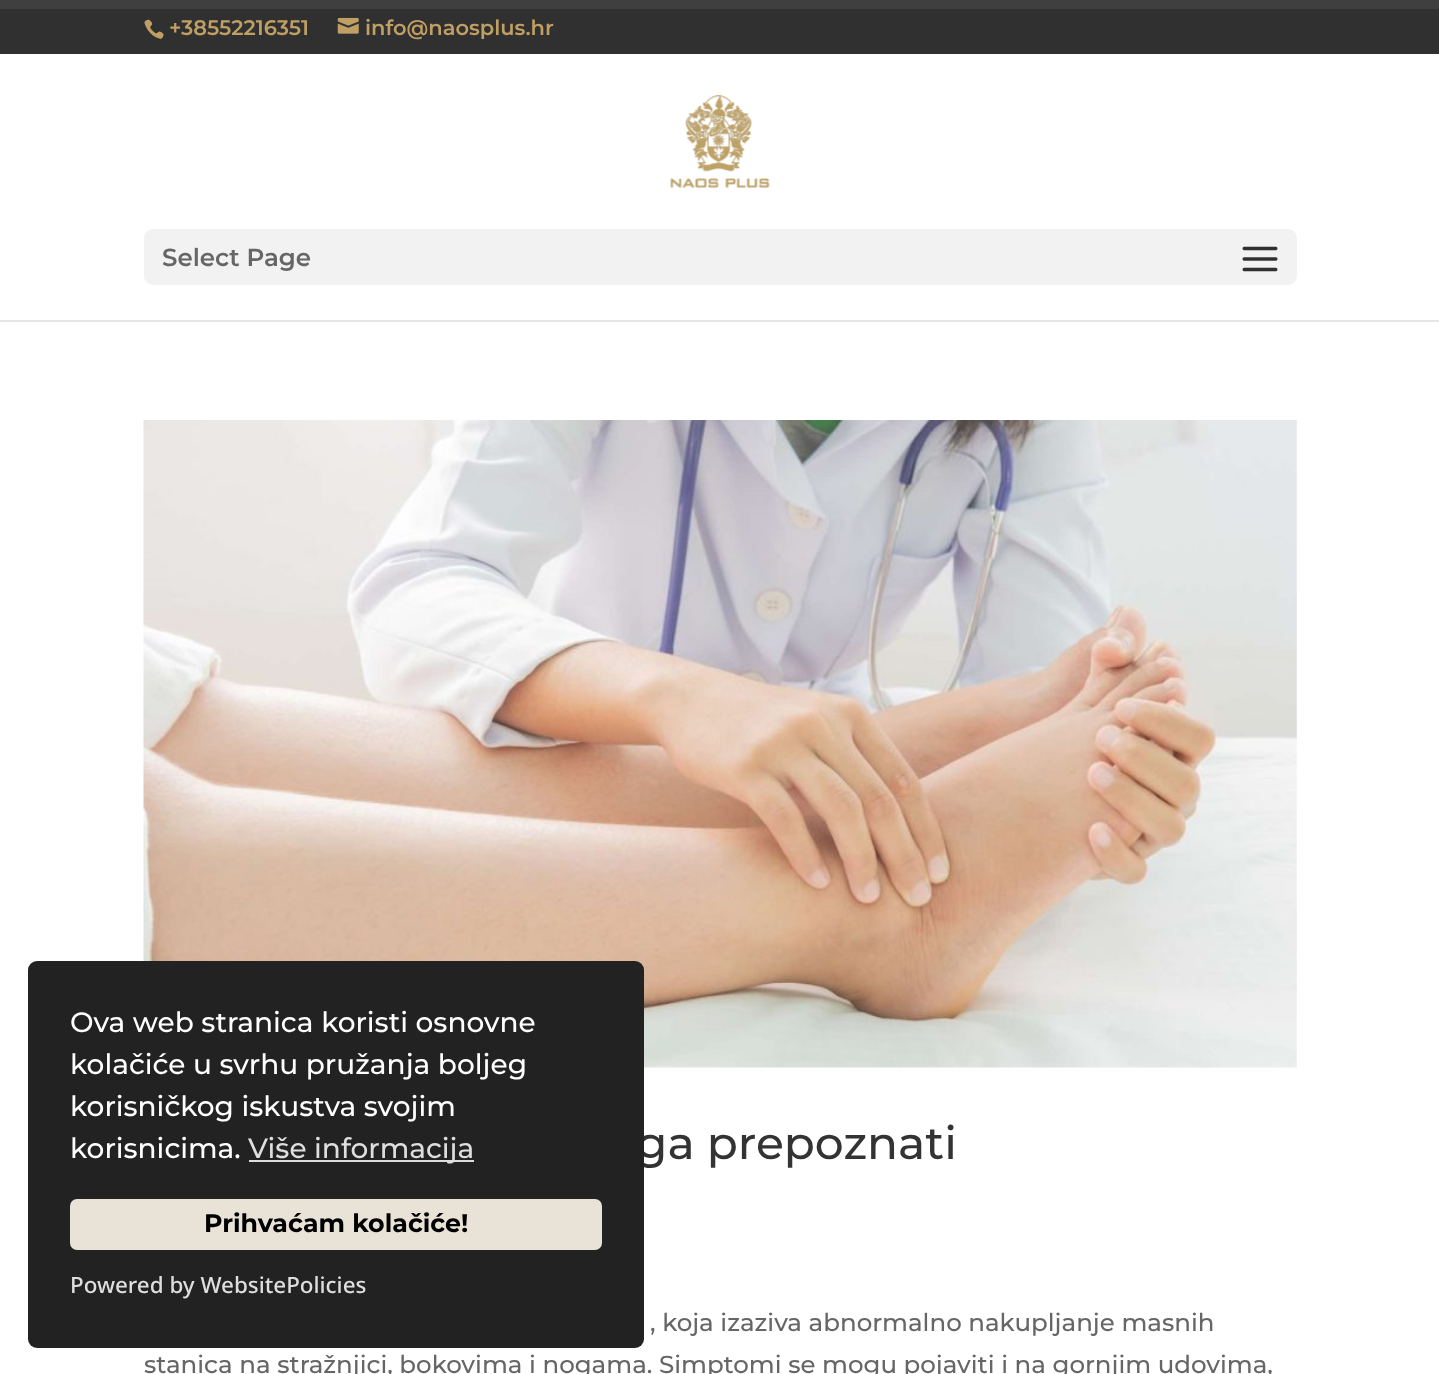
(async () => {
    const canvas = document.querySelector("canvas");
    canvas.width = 1439;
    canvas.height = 1374;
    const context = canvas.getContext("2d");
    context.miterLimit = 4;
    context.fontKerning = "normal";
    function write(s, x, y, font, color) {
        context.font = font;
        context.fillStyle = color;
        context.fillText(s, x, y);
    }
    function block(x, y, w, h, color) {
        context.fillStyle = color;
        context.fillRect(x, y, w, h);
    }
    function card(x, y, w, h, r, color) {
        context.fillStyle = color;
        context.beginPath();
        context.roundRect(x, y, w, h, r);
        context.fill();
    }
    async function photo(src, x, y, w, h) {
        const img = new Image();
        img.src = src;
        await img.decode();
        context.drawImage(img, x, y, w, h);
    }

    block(0, 0, 1439, 1374, "rgb(255, 255, 255)");
    block(0, 0, 1439, 9, "rgb(63, 63, 63)");
    block(0, 9, 1439, 45, "rgb(48, 48, 48)");
    await photo("media/1.png", 144, 19, 20, 20);
    write("+38552216351", 169, 35, "600 21px Montserrat", "rgb(191, 159, 99)");
    await photo("media/2.png", 337, 17, 22, 17);
    write("info@naosplus.hr", 365, 35, "600 21px Montserrat", "rgb(191, 159, 99)");
    block(0, 320, 1439, 2, "rgb(230, 230, 230)");
    await photo("media/3.png", 670, 94, 100, 95);
    card(144, 229, 1153, 56, 9, "rgb(242, 242, 242)");
    write("Select Page", 162, 266, "600 24.5px Montserrat", "rgb(102, 102, 102)");
    await photo("media/4.png", 1242, 246, 36, 26);
    await photo("media/5.png", 143, 420, 1154, 648);
    write("ga prepoznati", 636, 1159, "500 45.5px Montserrat", "rgb(51, 51, 51)");
    write(", koja izaziva abnormalno nakupljanje masnih", 650, 1331, "500 24.5px Montserrat", "rgb(102, 102, 102)");
    write("stanica na stražnjici, bokovima i nogama. Simptomi se mogu pojaviti i na gornjim udovima,", 144, 1373, "500 24.5px Montserrat", "rgb(102, 102, 102)");
    card(28, 961, 616, 387, 9, "rgb(34, 34, 34)");
    write("Ova web stranica koristi osnovne", 70, 1032, "500 28px Montserrat", "rgb(255, 255, 255)");
    write("kolačiće u svrhu pružanja boljeg", 70, 1074, "500 28px Montserrat", "rgb(255, 255, 255)");
    write("korisničkog iskustva svojim", 70, 1116, "500 28px Montserrat", "rgb(255, 255, 255)");
    write("korisnicima.", 70, 1158, "500 28px Montserrat", "rgb(255, 255, 255)");
    block(249, 1160, 225, 2, "rgb(222, 222, 222)");
    write("Više informacija", 248, 1158, "500 28px Montserrat", "rgb(222, 222, 222)");
    card(70, 1199, 532, 51, 7, "rgb(233, 226, 215)");
    write("Prihvaćam kolačiće!", 204, 1232, "bold 25.25px Montserrat", "rgb(0, 0, 0)");
    write("Powered by WebsitePolicies", 70, 1293, "500 22.4px Noto Sans", "rgb(222, 222, 222)");
})();
